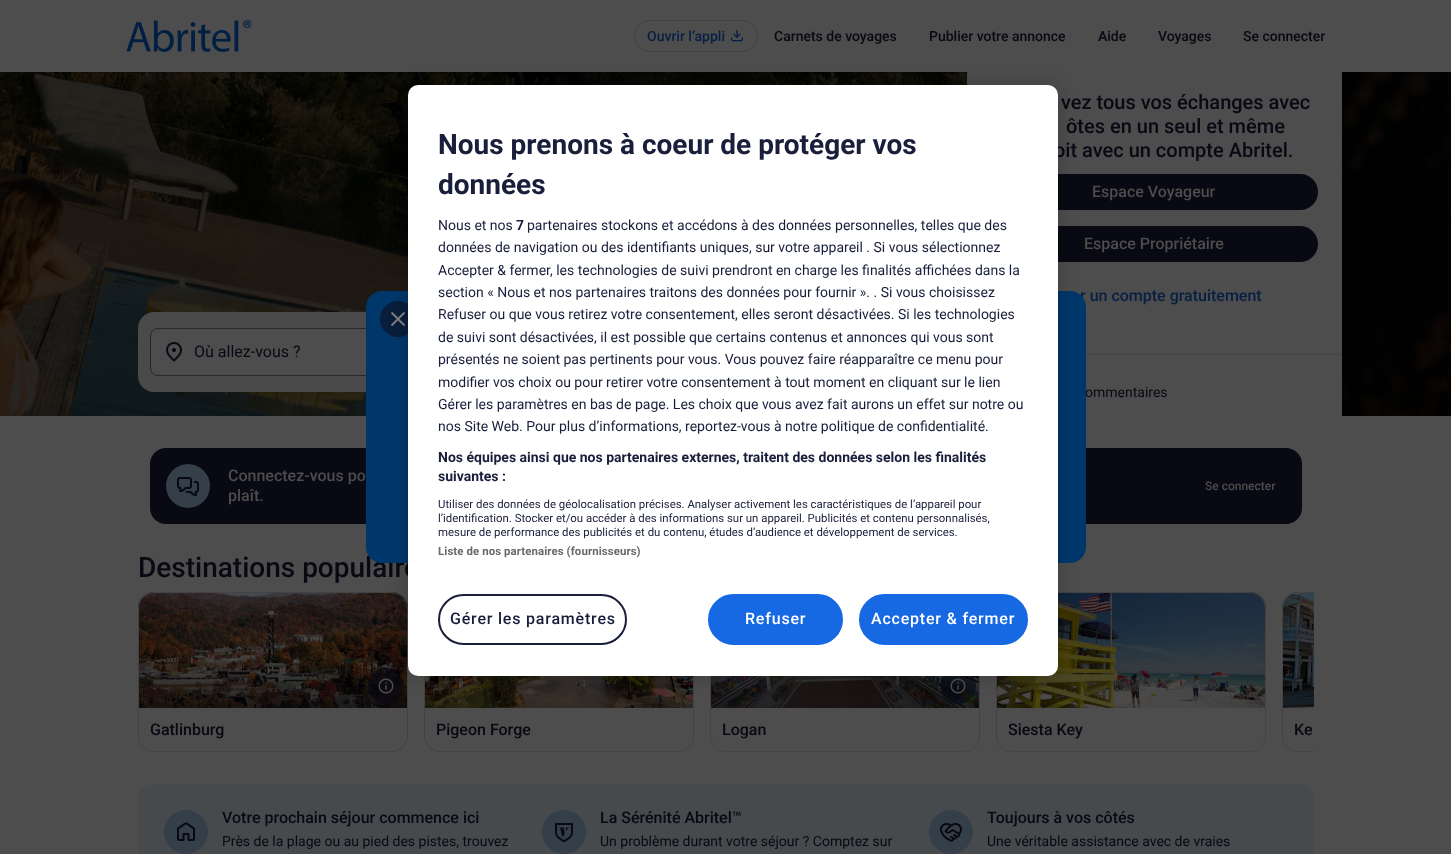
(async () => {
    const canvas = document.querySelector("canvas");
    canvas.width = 1451;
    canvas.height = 854;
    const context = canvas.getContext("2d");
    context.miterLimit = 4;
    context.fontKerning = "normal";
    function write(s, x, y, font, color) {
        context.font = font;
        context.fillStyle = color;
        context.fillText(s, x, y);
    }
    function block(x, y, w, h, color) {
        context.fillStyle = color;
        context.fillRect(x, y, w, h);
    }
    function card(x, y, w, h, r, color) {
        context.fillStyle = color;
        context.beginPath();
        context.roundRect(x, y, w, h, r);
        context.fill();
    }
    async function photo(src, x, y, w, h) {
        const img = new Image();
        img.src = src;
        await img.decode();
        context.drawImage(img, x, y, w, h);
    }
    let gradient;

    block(0, 0, 1451, 854, "rgb(77, 77, 77)");
    await photo("media/3.png", 0, 72, 1451, 344);
    block(46, 72, 1157, 1, "rgba(4, 4, 9, 0.12)");
    await photo("media/1.png", 126, 20, 125, 32);
    context.beginPath();
    context.roundRect(634.5, 20.5, 123, 31, 15.5);
    context.strokeStyle = "rgb(67, 67, 69)";
    context.stroke();
    write("Ouvrir l’appli", 647, 41, "500 14px Roboto", "rgb(7, 31, 68)");
    await photo("media/2.png", 731, 30, 12, 12);
    write("Carnets de voyages", 774, 41, "500 14px Roboto", "rgb(8, 9, 18)");
    write("Publier votre annonce", 929, 41, "500 14px Roboto", "rgb(8, 9, 18)");
    write("Se connecter", 1243, 41, "500 14px Roboto", "rgb(8, 9, 18)");
    card(138, 312, 1176, 80, 16, "rgb(74, 74, 75)");
    card(967, 66, 375, 359, 8, "rgb(77, 77, 77)");
    write("vez tous vos échanges avec", 1061, 109, "500 20px Roboto", "rgb(8, 9, 18)");
    write("ôtes en un seul et même", 1066, 133, "500 20px Roboto", "rgb(8, 9, 18)");
    write("oit avec un compte Abritel.", 1054, 157, "500 20px Roboto", "rgb(8, 9, 18)");
    card(991, 174, 327, 36, 18, "rgb(8, 9, 18)");
    write("Espace Voyageur", 1092, 197, "500 16px Roboto", "rgb(77, 77, 77)");
    card(991, 226, 327, 36, 18, "rgb(8, 9, 18)");
    write("Espace Propriétaire", 1084, 249, "500 16px Roboto", "rgb(77, 77, 77)");
    write("r un compte gratuitement", 1080, 301, "500 16px Roboto", "rgb(7, 31, 68)");
    block(1086, 354, 256, 1, "rgb(67, 67, 69)");
    block(1341, 354, 1, 1, "rgb(72, 72, 72)");
    write("ommentaires", 1085, 397, "14px Roboto", "rgb(8, 9, 18)");
    write("Aide", 1098, 41, "500 14px Roboto", "rgb(8, 9, 18)");
    write("Voyages", 1158, 41, "500 14px Roboto", "rgb(8, 9, 18)");
    context.fillStyle = "rgb(77, 77, 77)";
    context.beginPath();
    context.roundRect(150.5, 328.5, 333, 47, 7.5);
    context.fill();
    context.strokeStyle = "rgb(39, 40, 45)";
    context.stroke();
    await photo("media/4.png", 166, 342, 16, 20);
    write("Où allez-vous ?", 194, 357, "16px Roboto", "rgb(8, 9, 18)");
    card(150, 448, 1152, 76, 16, "rgb(8, 9, 18)");
    write("Destinations populaire", 138, 577, "500 28px Roboto", "rgb(8, 9, 18)");
    card(366, 291, 720, 272, 16, "rgb(0, 55, 107)");
    context.fillStyle = "rgb(8, 30, 58)";
    context.beginPath();
    context.arc(398, 319, 18, 0, Math.PI * 2);
    context.fill();
    await photo("media/5.png", 391, 312, 14, 14);
    context.fillStyle = "rgb(52, 63, 73)";
    context.beginPath();
    context.arc(188, 486, 22, 0, Math.PI * 2);
    context.fill();
    await photo("media/6.png", 177, 477, 22, 19);
    write("Connectez-vous po", 228, 481, "500 16px Roboto", "rgb(77, 77, 77)");
    write("plaît.", 228, 501, "500 16px Roboto", "rgb(77, 77, 77)");
    write("Se connecter", 1205, 490, "500 12px Roboto", "rgb(77, 77, 77)");
    await photo("media/7.png", 138, 592, 270, 116);
    await photo("media/8.png", 138, 592, 270, 116);
    gradient = context.createLinearGradient(273, 640, 273, 714);
    gradient.addColorStop(0.22, "rgba(4, 4, 9, 0)");
    gradient.addColorStop(0.43, "rgba(4, 4, 9, 0.11)");
    gradient.addColorStop(0.67, "rgba(4, 4, 9, 0.32)");
    gradient.addColorStop(1, "rgba(4, 4, 9, 0.5)");
    context.fillStyle = gradient;
    context.fillRect(139, 662, 268, 46);
    context.beginPath();
    context.roundRect(138.5, 592.5, 269, 159, 15.5);
    context.strokeStyle = "rgb(67, 67, 69)";
    context.stroke();
    context.fillStyle = "rgba(8, 9, 18, 0.64)";
    context.beginPath();
    context.arc(386, 686, 18, 0, Math.PI * 2);
    context.fill();
    await photo("media/9.png", 378, 678, 16, 16);
    write("Gatlinburg", 150, 735, "500 16px Roboto", "rgb(8, 9, 18)");
    await photo("media/10.png", 425, 707, 268, 1);
    await photo("media/11.png", 425, 676, 268, 32);
    context.beginPath();
    context.roundRect(424.5, 592.5, 269, 159, 15.5);
    context.stroke();
    write("Pigeon Forge", 436, 735, "500 16px Roboto", "rgb(8, 9, 18)");
    await photo("media/10.png", 711, 707, 268, 1);
    await photo("media/13.png", 711, 676, 268, 32);
    gradient = context.createLinearGradient(845, 640, 845, 714);
    gradient.addColorStop(0.22, "rgba(4, 4, 9, 0)");
    gradient.addColorStop(0.43, "rgba(4, 4, 9, 0.11)");
    gradient.addColorStop(0.67, "rgba(4, 4, 9, 0.32)");
    gradient.addColorStop(1, "rgba(4, 4, 9, 0.5)");
    context.fillStyle = gradient;
    context.fillRect(711, 676, 268, 32);
    context.beginPath();
    context.roundRect(710.5, 592.5, 269, 159, 15.5);
    context.stroke();
    context.fillStyle = "rgba(8, 9, 18, 0.64)";
    context.beginPath();
    context.arc(958, 686, 18, 0, Math.PI * 2);
    context.fill();
    await photo("media/12.png", 950, 678, 16, 16);
    write("Logan", 722, 735, "500 16px Roboto", "rgb(8, 9, 18)");
    await photo("media/14.png", 997, 592, 269, 116);
    await photo("media/15.png", 997, 592, 269, 116);
    context.beginPath();
    context.roundRect(996.5, 592.5, 269, 159, 15.5);
    context.stroke();
    write("Siesta Key", 1008, 735, "500 16px Roboto", "rgb(8, 9, 18)");
    await photo("media/16.png", 1282, 592, 32, 116);
    await photo("media/17.png", 1282, 592, 32, 116);
    context.save();
    context.beginPath();
    context.rect(138, 592, 1176, 160);
    context.clip();
    context.beginPath();
    context.roundRect(1282.5, 592.5, 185, 159, 15.5);
    context.stroke();
    context.restore();
    write("Ke", 1294, 735, "500 16px Roboto", "rgb(8, 9, 18)");
    card(138, 784, 1176, 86, 16, "rgb(71, 74, 77)");
    context.fillStyle = "rgb(52, 63, 73)";
    context.beginPath();
    context.arc(186, 832, 22, 0, Math.PI * 2);
    context.fill();
    await photo("media/18.png", 177, 822, 18, 19);
    write("Votre prochain séjour commence ici", 222, 823, "500 16px Roboto", "rgb(8, 9, 18)");
    write("Près de la plage ou au pied des pistes, trouvez", 222, 846, "14px Roboto", "rgb(8, 9, 18)");
    context.fillStyle = "rgb(52, 63, 73)";
    context.beginPath();
    context.arc(564, 832, 22, 0, Math.PI * 2);
    context.fill();
    await photo("media/19.png", 555, 823, 18, 20);
    write("La Sérénité Abritel™", 600, 823, "500 16px Roboto", "rgb(8, 9, 18)");
    write("Un problème durant votre séjour ? Comptez sur", 600, 846, "14px Roboto", "rgb(8, 9, 18)");
    context.fillStyle = "rgb(52, 63, 73)";
    context.beginPath();
    context.arc(951, 832, 22, 0, Math.PI * 2);
    context.fill();
    await photo("media/20.png", 940, 823, 22, 19);
    write("Toujours à vos côtés", 987, 823, "500 16px Roboto", "rgb(8, 9, 18)");
    write("Une véritable assistance avec de vraies", 987, 846, "14px Roboto", "rgb(8, 9, 18)");
    context.fillStyle = "rgba(0, 0, 0, 0.2)";
    context.filter = "blur(9px)";
    context.beginPath();
    context.roundRect(408, 85, 650, 591, 10);
    context.fill();
    context.filter = "none";
    card(408, 85, 650, 591, 10, "rgb(255, 255, 255)");
    write("Nous prenons à coeur de protéger vos", 438, 154, "bold 28px Roboto", "rgb(25, 30, 59)");
    write("données", 438, 194, "bold 28px Roboto", "rgb(25, 30, 59)");
    write("Nous et nos", 438, 230, "14px Roboto", "rgb(25, 30, 59)");
    write("7", 516, 230, "bold 14px Roboto", "rgb(25, 30, 59)");
    write("partenaires stockons et accédons à des données personnelles, telles que des", 527, 230, "14px Roboto", "rgb(25, 30, 59)");
    write("données de navigation ou des identifiants uniques, sur votre appareil . Si vous sélectionnez", 438, 252, "14px Roboto", "rgb(25, 30, 59)");
    write("Accepter & fermer, les technologies de suivi prendront en charge les finalités affichées dans la", 438, 275, "14px Roboto", "rgb(25, 30, 59)");
    write("section « Nous et nos partenaires traitons des données pour fournir ». . Si vous choisissez", 438, 297, "14px Roboto", "rgb(25, 30, 59)");
    write("Refuser ou que vous retirez votre consentement, elles seront désactivées. Si les technologies", 438, 319, "14px Roboto", "rgb(25, 30, 59)");
    write("de suivi sont désactivées, il est possible que certains contenus et annonces qui vous sont", 438, 342, "14px Roboto", "rgb(25, 30, 59)");
    write("présentés ne soient pas pertinents pour vous. Vous pouvez faire réapparaître ce menu pour", 438, 364, "14px Roboto", "rgb(25, 30, 59)");
    write("modifier vos choix ou pour retirer votre consentement à tout moment en cliquant sur le lien", 438, 387, "14px Roboto", "rgb(25, 30, 59)");
    write("Gérer les paramètres en bas de page. Les choix que vous avez fait aurons un effet sur notre ou", 438, 409, "14px Roboto", "rgb(25, 30, 59)");
    write("nos Site Web. Pour plus d’informations, reportez-vous à notre politique de confidentialité.", 438, 431, "14px Roboto", "rgb(25, 30, 59)");
    write("Nos équipes ainsi que nos partenaires externes, traitent des données selon les finalités", 438, 462, "bold 14px Roboto", "rgb(25, 30, 59)");
    write("suivantes :", 438, 481, "bold 14px Roboto", "rgb(25, 30, 59)");
    write("Utiliser des données de géolocalisation précises. Analyser activement les caractéristiques de l’appareil pour", 438, 508, "11.4px Roboto", "rgb(25, 30, 59)");
    write("l’identification. Stocker et/ou accéder à des informations sur un appareil. Publicités et contenu personnalisés,", 438, 522, "11.4px Roboto", "rgb(25, 30, 59)");
    write("mesure de performance des publicités et du contenu, études d’audience et développement de services.", 438, 536, "11.4px Roboto", "rgb(25, 30, 59)");
    context.letterSpacing = "0.1px";
    write("Liste de nos partenaires (fournisseurs)", 438, 555, "bold 11.4px Roboto", "rgb(105, 105, 105)");
    context.beginPath();
    context.roundRect(439, 595, 187, 49, 24.5);
    context.strokeStyle = "rgb(25, 30, 59)";
    context.lineWidth = 2;
    context.stroke();
    context.letterSpacing = "0.8px";
    write("Gérer les paramètres", 450, 624, "500 16px Roboto", "rgb(25, 30, 59)");
    context.fillStyle = "rgb(22, 104, 227)";
    context.beginPath();
    context.roundRect(709, 595, 133, 49, 24.5);
    context.fill();
    context.strokeStyle = "rgb(22, 104, 227)";
    context.stroke();
    write("Refuser", 745, 624, "500 16px Roboto", "rgb(255, 255, 255)");
    context.fillStyle = "rgb(22, 104, 227)";
    context.beginPath();
    context.roundRect(860, 595, 167, 49, 24.5);
    context.fill();
    context.stroke();
    write("Accepter & fermer", 871, 624, "500 16px Roboto", "rgb(255, 255, 255)");
})();
